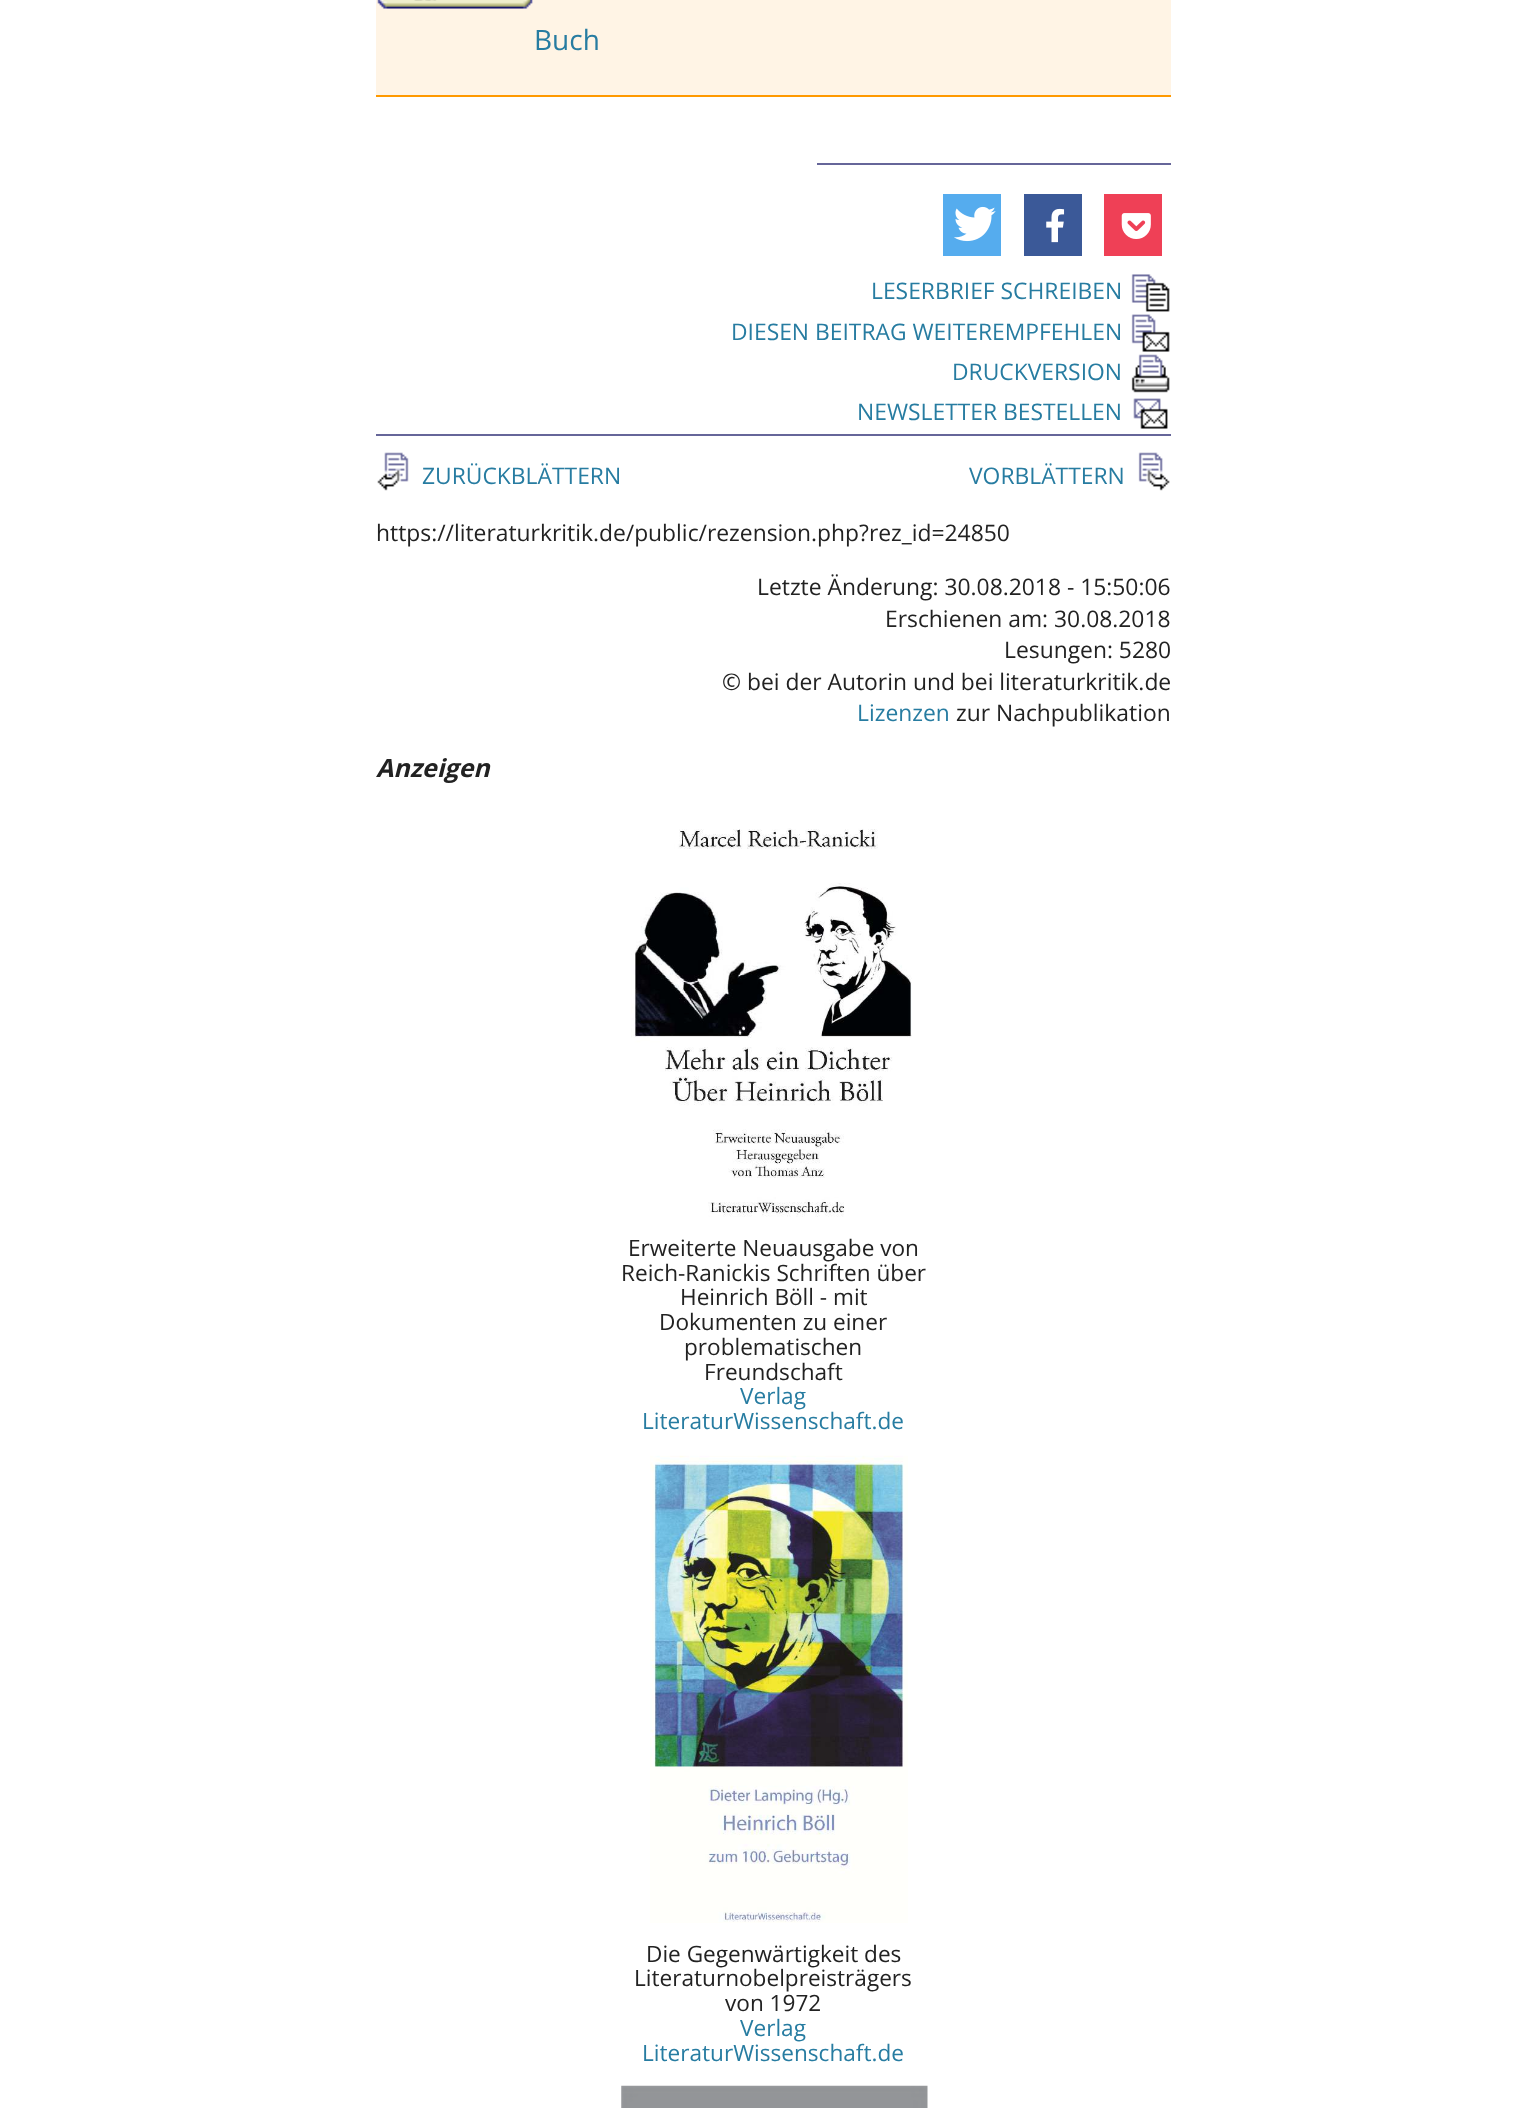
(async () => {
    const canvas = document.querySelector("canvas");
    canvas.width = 1538;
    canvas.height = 2108;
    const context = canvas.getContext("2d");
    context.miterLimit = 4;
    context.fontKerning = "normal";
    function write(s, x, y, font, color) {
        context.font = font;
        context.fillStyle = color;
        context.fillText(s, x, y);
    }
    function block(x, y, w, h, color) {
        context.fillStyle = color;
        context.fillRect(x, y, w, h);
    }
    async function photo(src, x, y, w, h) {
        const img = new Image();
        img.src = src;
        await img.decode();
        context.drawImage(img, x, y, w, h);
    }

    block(0, 0, 1538, 2108, "rgb(255, 255, 255)");
    block(376, 0, 795, 95, "rgb(255, 244, 229)");
    await photo("media/1.png", 377, 0, 156, 9);
    write("Buch", 534, 50, "28px Open Sans", "rgb(39, 124, 161)");
    block(376, 95, 795, 2, "rgb(255, 153, 0)");
    block(817, 163, 354, 2, "rgb(102, 102, 153)");
    block(943, 194, 58, 62, "rgb(85, 172, 238)");
    await photo("media/2.png", 954, 206, 42, 36);
    block(1024, 194, 58, 62, "rgb(59, 89, 152)");
    await photo("media/3.png", 1046, 208, 19, 35);
    block(1104, 194, 58, 62, "rgb(239, 64, 86)");
    await photo("media/4.png", 1121, 213, 30, 26);
    write("LESERBRIEF SCHREIBEN", 871, 299, "22.85px Open Sans", "rgb(39, 124, 161)");
    await photo("media/5.png", 1131, 274, 39, 38);
    write("DIESEN BEITRAG WEITEREMPFEHLEN", 731, 340, "22.85px Open Sans", "rgb(39, 124, 161)");
    await photo("media/6.png", 1131, 314, 39, 38);
    write("DRUCKVERSION", 952, 380, "22.85px Open Sans", "rgb(39, 124, 161)");
    await photo("media/7.png", 1131, 354, 39, 39);
    write("NEWSLETTER BESTELLEN", 857, 420, "22.85px Open Sans", "rgb(39, 124, 161)");
    await photo("media/8.png", 1133, 398, 35, 31);
    block(376, 434, 795, 2, "rgb(102, 102, 153)");
    await photo("media/9.png", 377, 452, 32, 39);
    write("ZURÜCKBLÄTTERN", 422, 484, "22.85px Open Sans", "rgb(39, 124, 161)");
    write("VORBLÄTTERN", 969, 484, "22.85px Open Sans", "rgb(39, 124, 161)");
    await photo("media/10.png", 1138, 452, 32, 39);
    write("https://literaturkritik.de/public/rezension.php?rez_id=24850", 376, 541, "22.85px Open Sans", "rgb(34, 34, 34)");
    write("Letzte Änderung: 30.08.2018 - 15:50:06", 757, 595, "22.85px Open Sans", "rgb(34, 34, 34)");
    write("Erschienen am: 30.08.2018", 885, 627, "22.85px Open Sans", "rgb(34, 34, 34)");
    write("Lesungen: 5280", 1004, 658, "22.85px Open Sans", "rgb(34, 34, 34)");
    write("© bei der Autorin und bei literaturkritik.de", 722, 690, "22.85px Open Sans", "rgb(34, 34, 34)");
    write("Lizenzen", 857, 721, "22.85px Open Sans", "rgb(39, 124, 161)");
    write("zur Nachpublikation", 956, 721, "22.85px Open Sans", "rgb(34, 34, 34)");
    write("Anzeigen", 376, 777, "italic bold 25px Open Sans", "rgb(34, 34, 34)");
    await photo("media/11.png", 631, 828, 281, 389);
    write("Erweiterte Neuausgabe von", 628, 1256, "22.6px Open Sans", "rgb(34, 34, 34)");
    write("Reich-Ranickis Schriften über", 621, 1281, "22.6px Open Sans", "rgb(34, 34, 34)");
    write("Heinrich Böll - mit", 680, 1305, "22.6px Open Sans", "rgb(34, 34, 34)");
    write("Dokumenten zu einer", 659, 1330, "22.6px Open Sans", "rgb(34, 34, 34)");
    write("problematischen", 684, 1355, "22.6px Open Sans", "rgb(34, 34, 34)");
    write("Freundschaft", 704, 1380, "22.6px Open Sans", "rgb(34, 34, 34)");
    write("Verlag", 740, 1404, "22.6px Open Sans", "rgb(39, 124, 161)");
    write("LiteraturWissenschaft.de", 642, 1429, "22.6px Open Sans", "rgb(39, 124, 161)");
    await photo("media/12.png", 650, 1455, 258, 468);
    write("Die Gegenwärtigkeit des", 646, 1962, "22.6px Open Sans", "rgb(34, 34, 34)");
    write("Literaturnobelpreisträgers", 634, 1986, "22.6px Open Sans", "rgb(34, 34, 34)");
    write("von 1972", 725, 2011, "22.6px Open Sans", "rgb(34, 34, 34)");
    write("Verlag", 740, 2036, "22.6px Open Sans", "rgb(39, 124, 161)");
    write("LiteraturWissenschaft.de", 642, 2061, "22.6px Open Sans", "rgb(39, 124, 161)");
    await photo("media/13.png", 621, 2085, 307, 23);
})();
